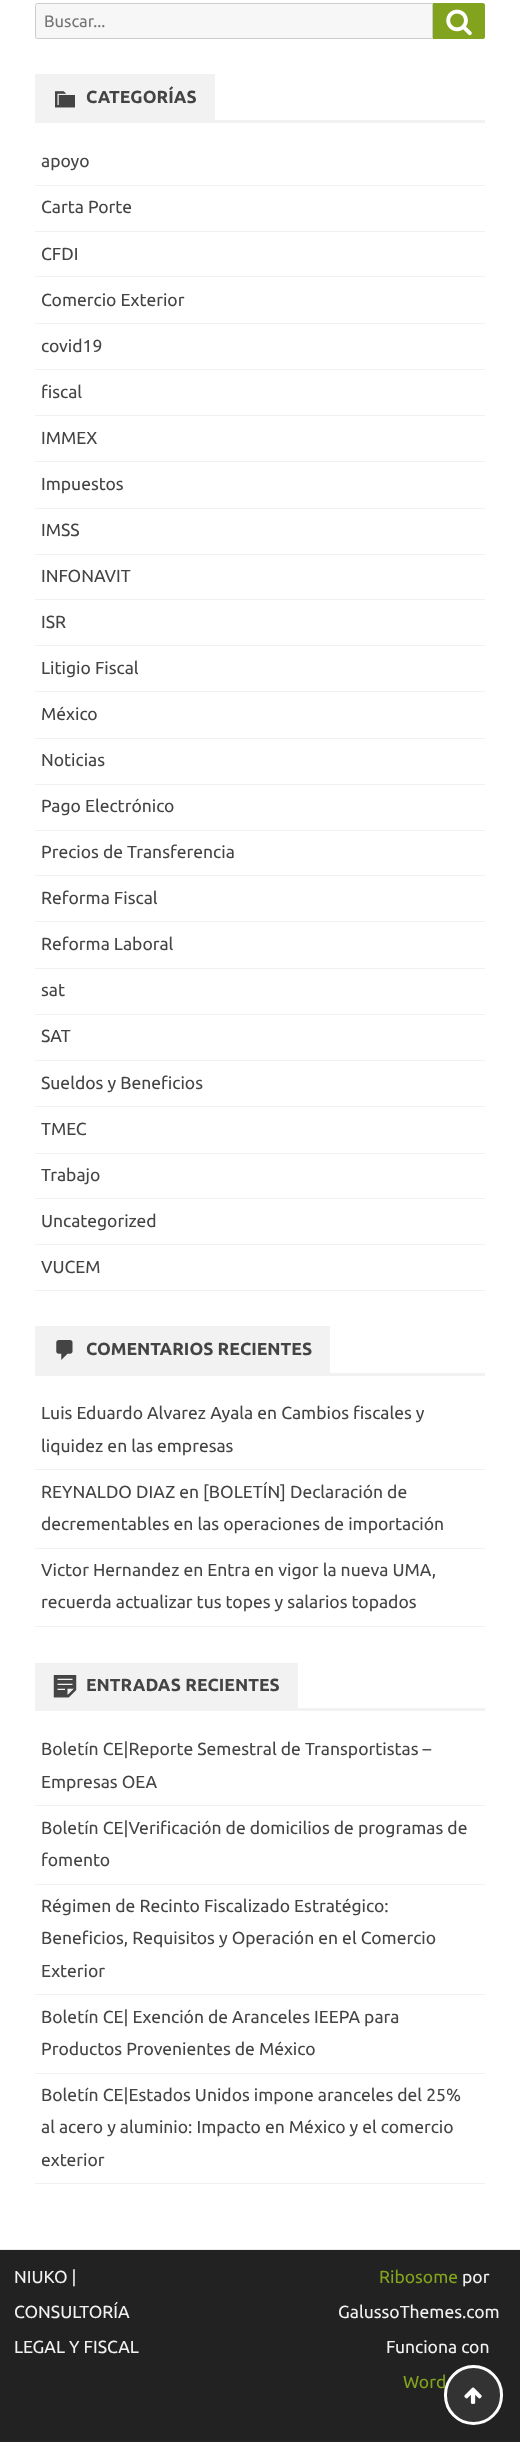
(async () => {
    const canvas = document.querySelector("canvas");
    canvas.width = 520;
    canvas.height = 2442;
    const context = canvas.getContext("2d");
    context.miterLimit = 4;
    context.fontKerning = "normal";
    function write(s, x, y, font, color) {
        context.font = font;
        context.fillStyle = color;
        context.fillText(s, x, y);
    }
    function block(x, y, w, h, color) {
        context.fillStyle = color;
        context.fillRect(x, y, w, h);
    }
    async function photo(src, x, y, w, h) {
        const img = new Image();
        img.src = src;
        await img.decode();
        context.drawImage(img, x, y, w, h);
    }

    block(0, 0, 520, 2442, "rgb(255, 255, 255)");
    context.fillStyle = "rgb(247, 247, 247)";
    context.beginPath();
    context.roundRect(35.5, 3.5, 397, 35, [2, 0, 0, 2]);
    context.fill();
    context.strokeStyle = "rgb(204, 204, 204)";
    context.stroke();
    write("Buscar...", 44, 27, "16.5px Ubuntu", "rgb(117, 117, 117)");
    context.fillStyle = "rgb(130, 163, 29)";
    context.beginPath();
    context.roundRect(433, 3, 52, 36, [0, 2.5, 2.5, 0]);
    context.fill();
    await photo("media/1.png", 446, 9, 26, 27);
    block(35, 120, 450, 3, "rgb(242, 242, 242)");
    block(35, 74, 180, 46, "rgb(242, 242, 242)");
    await photo("media/2.png", 55, 91, 20, 17);
    write("CATEGORÍAS", 86, 103, "bold 17.5px Ubuntu", "rgb(68, 68, 68)");
    block(35, 185, 450, 1, "rgb(242, 242, 242)");
    write("apoyo", 41, 167, "17.5px Ubuntu", "rgb(68, 68, 68)");
    block(35, 231, 450, 1, "rgb(242, 242, 242)");
    write("Carta Porte", 41, 213, "17.5px Ubuntu", "rgb(68, 68, 68)");
    block(35, 276, 450, 1, "rgb(242, 242, 242)");
    write("CFDI", 41, 260, "17.5px Ubuntu", "rgb(68, 68, 68)");
    block(35, 323, 450, 1, "rgb(242, 242, 242)");
    write("Comercio Exterior", 41, 306, "17.5px Ubuntu", "rgb(68, 68, 68)");
    block(35, 369, 450, 1, "rgb(242, 242, 242)");
    write("covid19", 41, 352, "17.5px Ubuntu", "rgb(68, 68, 68)");
    block(35, 415, 450, 1, "rgb(242, 242, 242)");
    write("fiscal", 41, 398, "17.5px Ubuntu", "rgb(68, 68, 68)");
    block(35, 461, 450, 1, "rgb(242, 242, 242)");
    write("IMMEX", 41, 444, "17.5px Ubuntu", "rgb(68, 68, 68)");
    block(35, 508, 450, 1, "rgb(242, 242, 242)");
    write("Impuestos", 41, 490, "17.5px Ubuntu", "rgb(68, 68, 68)");
    block(35, 554, 450, 1, "rgb(242, 242, 242)");
    write("IMSS", 41, 536, "17.5px Ubuntu", "rgb(68, 68, 68)");
    block(35, 599, 450, 1, "rgb(242, 242, 242)");
    write("INFONAVIT", 41, 582, "17.5px Ubuntu", "rgb(68, 68, 68)");
    block(35, 645, 450, 1, "rgb(242, 242, 242)");
    write("ISR", 41, 628, "17.5px Ubuntu", "rgb(68, 68, 68)");
    block(35, 691, 450, 1, "rgb(242, 242, 242)");
    write("Litigio Fiscal", 41, 674, "17.5px Ubuntu", "rgb(68, 68, 68)");
    block(35, 738, 450, 1, "rgb(242, 242, 242)");
    write("México", 41, 720, "17.5px Ubuntu", "rgb(68, 68, 68)");
    block(35, 784, 450, 1, "rgb(242, 242, 242)");
    write("Noticias", 41, 766, "17.5px Ubuntu", "rgb(68, 68, 68)");
    block(35, 830, 450, 1, "rgb(242, 242, 242)");
    write("Pago Electrónico", 41, 812, "17.5px Ubuntu", "rgb(68, 68, 68)");
    block(35, 875, 450, 1, "rgb(242, 242, 242)");
    write("Precios de Transferencia", 41, 858, "17.5px Ubuntu", "rgb(68, 68, 68)");
    block(35, 921, 450, 1, "rgb(242, 242, 242)");
    write("Reforma Fiscal", 41, 904, "17.5px Ubuntu", "rgb(68, 68, 68)");
    block(35, 968, 450, 1, "rgb(242, 242, 242)");
    write("Reforma Laboral", 41, 950, "17.5px Ubuntu", "rgb(68, 68, 68)");
    block(35, 1014, 450, 1, "rgb(242, 242, 242)");
    write("sat", 41, 996, "17.5px Ubuntu", "rgb(68, 68, 68)");
    block(35, 1060, 450, 1, "rgb(242, 242, 242)");
    write("SAT", 41, 1042, "17.5px Ubuntu", "rgb(68, 68, 68)");
    block(35, 1106, 450, 1, "rgb(242, 242, 242)");
    write("Sueldos y Beneficios", 41, 1089, "17.5px Ubuntu", "rgb(68, 68, 68)");
    block(35, 1153, 450, 1, "rgb(242, 242, 242)");
    write("TMEC", 41, 1135, "17.5px Ubuntu", "rgb(68, 68, 68)");
    block(35, 1198, 450, 1, "rgb(242, 242, 242)");
    write("Trabajo", 41, 1181, "17.5px Ubuntu", "rgb(68, 68, 68)");
    block(35, 1244, 450, 1, "rgb(242, 242, 242)");
    write("Uncategorized", 41, 1227, "17.5px Ubuntu", "rgb(68, 68, 68)");
    block(35, 1290, 450, 1, "rgb(242, 242, 242)");
    write("VUCEM", 41, 1273, "17.5px Ubuntu", "rgb(68, 68, 68)");
    block(35, 1373, 450, 3, "rgb(242, 242, 242)");
    block(35, 1326, 295, 47, "rgb(242, 242, 242)");
    await photo("media/3.png", 56, 1340, 17, 20);
    write("COMENTARIOS RECIENTES", 86, 1355, "bold 17.5px Ubuntu", "rgb(68, 68, 68)");
    block(35, 1469, 450, 1, "rgb(242, 242, 242)");
    write("Luis Eduardo Alvarez Ayala en Cambios fiscales y", 41, 1419, "17.5px Ubuntu", "rgb(68, 68, 68)");
    write("liquidez en las empresas", 41, 1452, "17.5px Ubuntu", "rgb(68, 68, 68)");
    block(35, 1548, 450, 1, "rgb(242, 242, 242)");
    write("REYNALDO DIAZ en [BOLETÍN] Declaración de", 41, 1498, "17.5px Ubuntu", "rgb(68, 68, 68)");
    write("decrementables en las operaciones de importación", 41, 1530, "17.5px Ubuntu", "rgb(68, 68, 68)");
    block(35, 1626, 450, 1, "rgb(242, 242, 242)");
    write("Victor Hernandez en Entra en vigor la nueva UMA,", 41, 1576, "17.5px Ubuntu", "rgb(68, 68, 68)");
    write("recuerda actualizar tus topes y salarios topados", 41, 1608, "17.5px Ubuntu", "rgb(68, 68, 68)");
    block(35, 1708, 450, 3, "rgb(242, 242, 242)");
    block(35, 1663, 263, 45, "rgb(242, 242, 242)");
    await photo("media/4.png", 53, 1675, 24, 23);
    write("ENTRADAS RECIENTES", 86, 1691, "bold 17.5px Ubuntu", "rgb(68, 68, 68)");
    block(35, 1805, 450, 1, "rgb(242, 242, 242)");
    write("Boletín CE|Reporte Semestral de Transportistas –", 41, 1755, "17.5px Ubuntu", "rgb(68, 68, 68)");
    write("Empresas OEA", 41, 1788, "17.5px Ubuntu", "rgb(68, 68, 68)");
    block(35, 1884, 450, 1, "rgb(242, 242, 242)");
    write("Boletín CE|Verificación de domicilios de programas de", 41, 1834, "17.5px Ubuntu", "rgb(68, 68, 68)");
    write("fomento", 41, 1866, "17.5px Ubuntu", "rgb(68, 68, 68)");
    block(35, 1994, 450, 1, "rgb(242, 242, 242)");
    write("Régimen de Recinto Fiscalizado Estratégico:", 41, 1912, "17.5px Ubuntu", "rgb(68, 68, 68)");
    write("Beneficios, Requisitos y Operación en el Comercio", 41, 1944, "17.5px Ubuntu", "rgb(68, 68, 68)");
    write("Exterior", 41, 1977, "17.5px Ubuntu", "rgb(68, 68, 68)");
    block(35, 2073, 450, 1, "rgb(242, 242, 242)");
    write("Boletín CE| Exención de Aranceles IEEPA para", 41, 2023, "17.5px Ubuntu", "rgb(68, 68, 68)");
    write("Productos Provenientes de México", 41, 2055, "17.5px Ubuntu", "rgb(68, 68, 68)");
    block(35, 2183, 450, 1, "rgb(242, 242, 242)");
    write("Boletín CE|Estados Unidos impone aranceles del 25%", 41, 2101, "17.5px Ubuntu", "rgb(68, 68, 68)");
    write("al acero y aluminio: Impacto en México y el comercio", 41, 2133, "17.5px Ubuntu", "rgb(68, 68, 68)");
    write("exterior", 41, 2166, "17.5px Ubuntu", "rgb(68, 68, 68)");
    block(0, 2250, 520, 192, "rgb(34, 34, 34)");
    block(0, 2249, 520, 1, "rgb(237, 237, 237)");
    write("NIUKO |", 14, 2283, "17.5px Ubuntu", "rgb(242, 242, 242)");
    write("CONSULTORÍA", 14, 2318, "17.5px Ubuntu", "rgb(242, 242, 242)");
    write("LEGAL Y FISCAL", 14, 2353, "17.5px Ubuntu", "rgb(242, 242, 242)");
    write("Ribosome", 379, 2283, "17.5px Ubuntu", "rgb(130, 163, 29)");
    write("por", 462, 2283, "17.5px Ubuntu", "rgb(242, 242, 242)");
    write("GalussoThemes.com", 338, 2318, "17.5px Ubuntu", "rgb(242, 242, 242)");
    write("Funciona con", 386, 2353, "17.5px Ubuntu", "rgb(242, 242, 242)");
    write("Word", 403, 2388, "17.5px Ubuntu", "rgb(130, 163, 29)");
    context.fillStyle = "rgb(51, 51, 51)";
    context.beginPath();
    context.roundRect(445.5, 2366.5, 56, 57, 28);
    context.fill();
    context.strokeStyle = "rgb(255, 255, 255)";
    context.lineWidth = 3;
    context.stroke();
    await photo("media/5.png", 464, 2387, 18, 17);
})();
